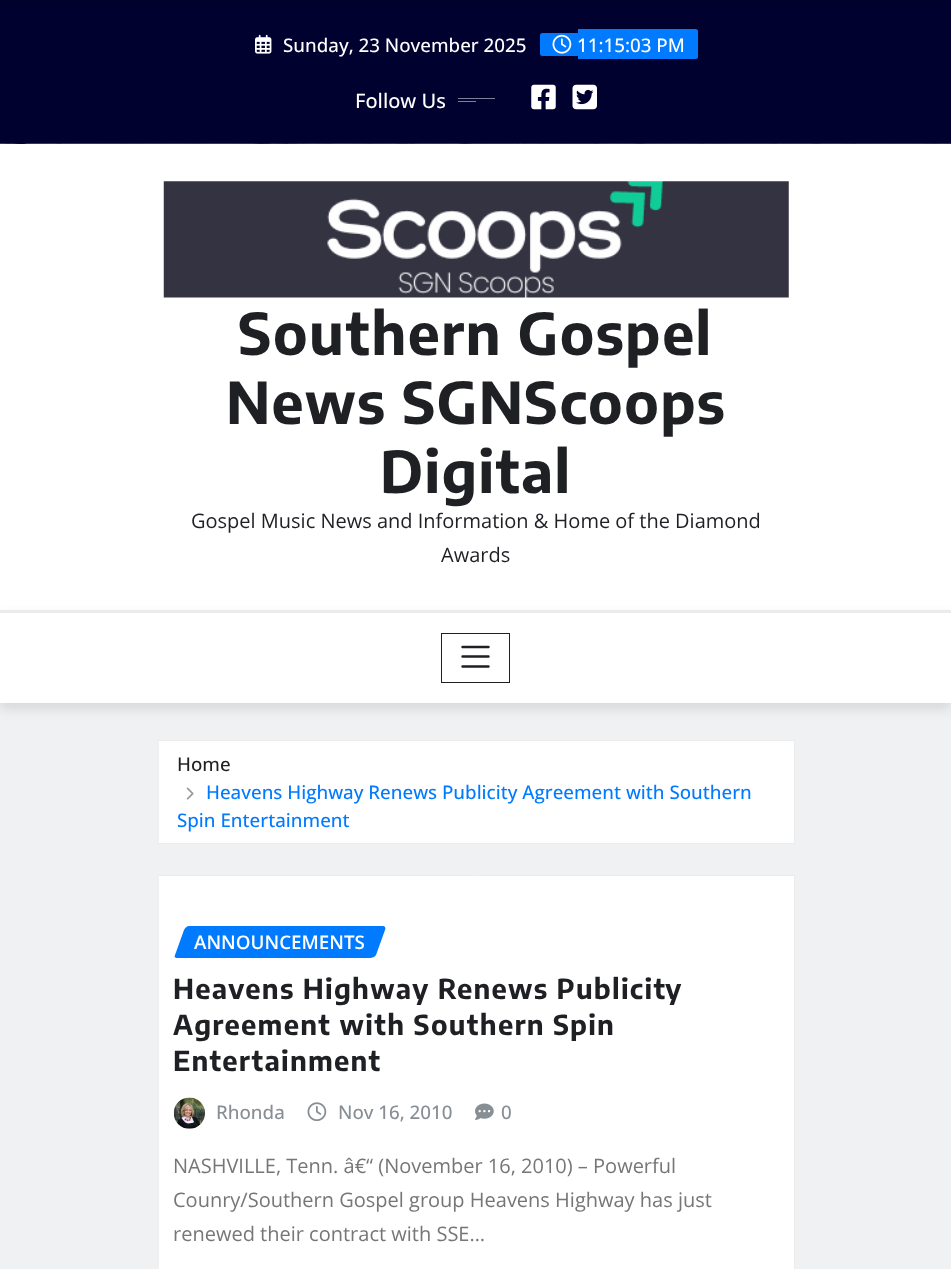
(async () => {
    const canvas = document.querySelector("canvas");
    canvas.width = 951;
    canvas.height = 1269;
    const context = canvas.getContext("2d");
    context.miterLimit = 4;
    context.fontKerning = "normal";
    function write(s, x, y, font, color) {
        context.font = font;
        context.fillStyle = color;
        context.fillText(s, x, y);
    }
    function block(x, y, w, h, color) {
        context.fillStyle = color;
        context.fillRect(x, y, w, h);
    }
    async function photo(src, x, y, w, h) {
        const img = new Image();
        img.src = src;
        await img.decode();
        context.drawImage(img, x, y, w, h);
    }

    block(0, 0, 951, 1269, "rgb(240, 241, 243)");
    block(0, 1, 951, 142, "rgb(1, 1, 47)");
    block(0, 0, 951, 1, "rgb(1, 1, 42)");
    block(0, 143, 951, 1, "rgb(1, 1, 42)");
    await photo("media/1.png", 255, 34, 17, 20);
    write("Sunday, 23 November 2025", 283, 52, "500 18.75px Open Sans", "rgb(255, 255, 255)");
    context.fillStyle = "rgb(0, 123, 255)";
    context.beginPath();
    context.roundRect(540, 33, 38, 23, [2.5, 0, 0, 2.5]);
    context.fill();
    await photo("media/2.png", 552, 34, 20, 20);
    context.beginPath();
    context.roundRect(578, 29, 120, 30, [0, 2.5, 2.5, 0]);
    context.fill();
    write("11:15:03 PM", 577, 52, "500 18.75px Open Sans", "rgb(255, 255, 255)");
    write("Follow Us", 355, 108, "500 20px Open Sans", "rgb(255, 255, 255)");
    block(458, 98, 37, 1, "rgb(128, 128, 151)");
    block(458, 101, 18, 1, "rgb(128, 128, 151)");
    await photo("media/3.png", 531, 84, 25, 26);
    await photo("media/4.png", 572, 84, 25, 26);
    await photo("media/5.png", 0, 143, 951, 1);
    block(0, 144, 951, 466, "rgb(255, 255, 255)");
    await photo("media/6.png", 163, 181, 626, 117);
    context.letterSpacing = "1.25px";
    write("Southern Gospel", 238, 355, "bold 57.5px Encode Sans Condensed", "rgb(31, 32, 36)");
    write("News SGNScoops", 226, 424, "bold 57.5px Encode Sans Condensed", "rgb(31, 32, 36)");
    write("Digital", 380, 493, "bold 57.5px Encode Sans Condensed", "rgb(31, 32, 36)");
    context.letterSpacing = "0px";
    write("Gospel Music News and Information & Home of the Diamond", 191, 528, "20px Open Sans", "rgb(31, 32, 36)");
    write("Awards", 441, 562, "20px Open Sans", "rgb(31, 32, 36)");
    context.fillStyle = "rgba(0, 0, 0, 0.1)";
    context.filter = "blur(6px)";
    context.beginPath();
    context.rect(0, 616, 951, 93);
    context.fill();
    context.filter = "none";
    block(0, 613, 951, 90, "rgb(255, 255, 255)");
    block(0, 610, 951, 3, "rgb(235, 235, 235)");
    context.strokeStyle = "rgb(31, 32, 36)";
    context.strokeRect(441.5, 633.5, 68, 49);
    context.beginPath();
    context.moveTo(462.5, 647);
    context.lineTo(488.5, 647);
    context.moveTo(462.5, 656.5);
    context.lineTo(488.5, 656.5);
    context.moveTo(462.5, 666.5);
    context.lineTo(488.5, 666.5);
    context.lineWidth = 2.4;
    context.lineCap = "round";
    context.stroke();
    context.fillStyle = "rgb(255, 255, 255)";
    context.beginPath();
    context.rect(158.5, 740.5, 636, 103);
    context.fill();
    context.strokeStyle = "rgb(235, 235, 235)";
    context.lineWidth = 1;
    context.stroke();
    write("Home", 177, 771, "500 18.75px Open Sans", "rgb(31, 32, 36)");
    await photo("media/7.png", 186, 787, 8, 13);
    write("Heavens Highway Renews Publicity Agreement with Southern", 206, 799, "500 18.75px Open Sans", "rgb(0, 123, 255)");
    write("Spin Entertainment", 177, 827, "500 18.75px Open Sans", "rgb(0, 123, 255)");
    context.fillStyle = "rgb(255, 255, 255)";
    context.beginPath();
    context.rect(158.5, 875.5, 636, 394);
    context.fill();
    context.stroke();
    context.fillStyle = "rgb(0, 123, 255)";
    context.beginPath();
    context.moveTo(189, 926);
    context.lineTo(383, 926);
    context.bezierCurveTo(385, 926, 386, 928, 385, 930);
    context.lineTo(376, 955);
    context.bezierCurveTo(375, 957, 372, 958, 370, 958);
    context.lineTo(177, 958);
    context.bezierCurveTo(175, 958, 174, 957, 175, 955);
    context.lineTo(184, 930);
    context.bezierCurveTo(185, 928, 187, 926, 189, 926);
    context.closePath();
    context.fill();
    write("ANNOUNCEMENTS", 194, 949, "600 18.75px Open Sans", "rgb(255, 255, 255)");
    context.letterSpacing = "1.25px";
    write("Heavens Highway Renews Publicity", 173, 999, "bold 27.5px Encode Sans Condensed", "rgb(31, 32, 36)");
    write("Agreement with Southern Spin", 173, 1035, "bold 27.5px Encode Sans Condensed", "rgb(31, 32, 36)");
    write("Entertainment", 173, 1071, "bold 27.5px Encode Sans Condensed", "rgb(31, 32, 36)");
    await photo("media/8.png", 173, 1097, 32, 32);
    context.letterSpacing = "0px";
    write("Rhonda", 216, 1119, "500 18.75px Open Sans", "rgb(135, 142, 148)");
    await photo("media/9.png", 307, 1102, 20, 20);
    write("Nov 16, 2010", 338, 1119, "500 18.75px Open Sans", "rgb(135, 142, 148)");
    await photo("media/10.png", 475, 1103, 19, 17);
    write("0", 501, 1119, "500 18.75px Open Sans", "rgb(135, 142, 148)");
    write("NASHVILLE, Tenn. â€“ (November 16, 2010) – Powerful", 173, 1173, "20px Open Sans", "rgb(118, 118, 118)");
    write("Counry/Southern Gospel group Heavens Highway has just", 173, 1207, "20px Open Sans", "rgb(118, 118, 118)");
    write("renewed their contract with SSE…", 173, 1241, "20px Open Sans", "rgb(118, 118, 118)");
})();
